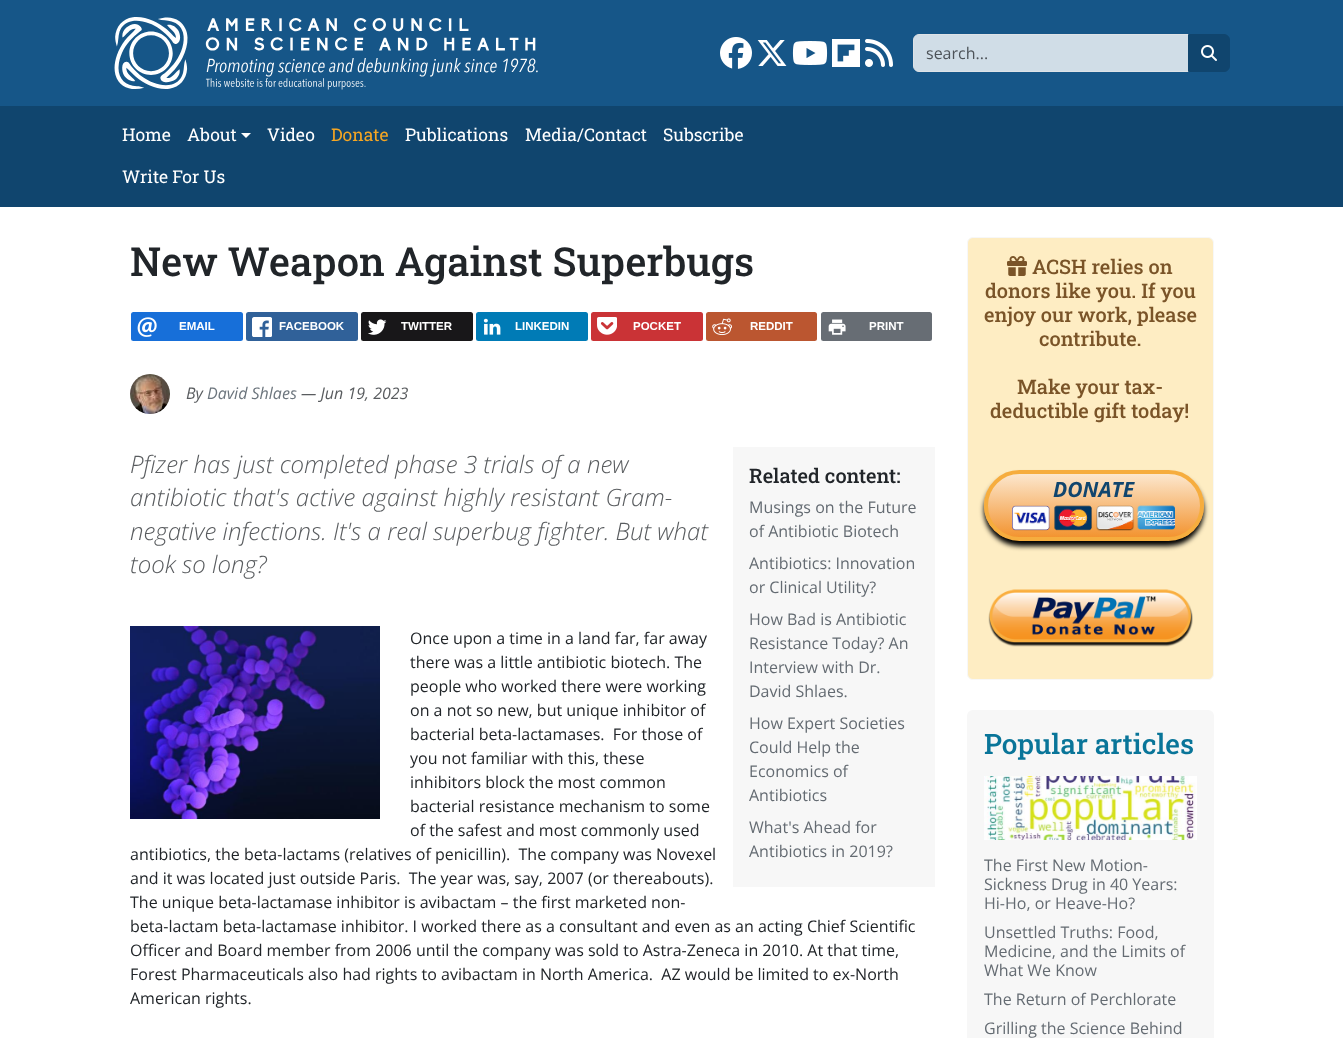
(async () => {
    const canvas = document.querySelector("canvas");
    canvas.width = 1343;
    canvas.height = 1038;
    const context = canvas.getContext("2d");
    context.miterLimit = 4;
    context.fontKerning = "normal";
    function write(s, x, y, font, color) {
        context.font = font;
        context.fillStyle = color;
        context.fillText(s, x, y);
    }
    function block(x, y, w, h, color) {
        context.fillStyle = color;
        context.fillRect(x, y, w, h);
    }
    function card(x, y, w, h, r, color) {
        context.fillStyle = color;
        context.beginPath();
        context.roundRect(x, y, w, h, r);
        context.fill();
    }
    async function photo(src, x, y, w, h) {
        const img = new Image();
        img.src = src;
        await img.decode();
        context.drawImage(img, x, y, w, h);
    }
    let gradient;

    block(0, 0, 1343, 1038, "rgb(255, 255, 255)");
    block(0, 0, 1343, 106, "rgb(22, 86, 136)");
    await photo("media/1.png", 114, 17, 424, 73);
    await photo("media/2.png", 720, 37, 32, 32);
    await photo("media/3.png", 757, 40, 30, 26);
    await photo("media/4.png", 792, 41, 36, 24);
    await photo("media/5.png", 832, 39, 28, 28);
    await photo("media/6.png", 865, 39, 28, 28);
    context.fillStyle = "rgb(208, 221, 231)";
    context.beginPath();
    context.roundRect(913.5, 34.5, 286, 37, 5.5);
    context.fill();
    context.strokeStyle = "rgb(222, 226, 230)";
    context.stroke();
    write("search...", 926, 59, "16px Open Sans", "rgb(77, 83, 89)");
    context.fillStyle = "rgb(16, 69, 110)";
    context.beginPath();
    context.roundRect(1188.5, 34.5, 41, 37, [0, 5.5, 5.5, 0]);
    context.fill();
    context.strokeStyle = "rgb(16, 69, 110)";
    context.stroke();
    await photo("media/7.png", 1201, 45, 16, 16);
    block(0, 106, 1343, 101, "rgb(16, 69, 110)");
    write("Home", 122, 141, "17.5px Roboto Slab", "rgb(255, 255, 255)");
    write("About", 187, 141, "17.5px Roboto Slab", "rgb(255, 255, 255)");
    context.beginPath();
    context.moveTo(241, 133);
    context.lineTo(251, 133);
    context.lineTo(246, 138);
    context.closePath();
    context.fill();
    write("Video", 267, 141, "17.5px Roboto Slab", "rgb(255, 255, 255)");
    write("Donate", 331, 141, "17.5px Roboto Slab", "rgb(245, 166, 35)");
    write("Publications", 405, 141, "17.5px Roboto Slab", "rgb(255, 255, 255)");
    write("Media/Contact", 525, 141, "17.5px Roboto Slab", "rgb(255, 255, 255)");
    write("Subscribe", 663, 141, "17.5px Roboto Slab", "rgb(255, 255, 255)");
    write("Write For Us", 122, 183, "17.5px Roboto Slab", "rgb(255, 255, 255)");
    write("New Weapon Against Superbugs", 130, 276, "500 40px Roboto Slab", "rgb(33, 37, 41)");
    card(131, 312, 112, 29, 2.5, "rgb(23, 111, 217)");
    await photo("media/8.png", 137, 317, 20, 20);
    write("EMAIL", 179, 330, "bold 11.5px Liberation Sans", "rgb(255, 255, 255)");
    card(246, 312, 112, 29, 2.5, "rgb(48, 97, 153)");
    await photo("media/9.png", 252, 317, 20, 20);
    write("FACEBOOK", 279, 330, "bold 11.5px Liberation Sans", "rgb(255, 255, 255)");
    card(361, 312, 112, 29, 2.5, "rgb(24, 23, 25)");
    await photo("media/10.png", 368, 319, 19, 16);
    write("TWITTER", 401, 330, "bold 11.5px Liberation Sans", "rgb(255, 255, 255)");
    card(476, 312, 112, 29, 2.5, "rgb(0, 123, 182)");
    await photo("media/11.png", 483, 318, 18, 17);
    write("LINKEDIN", 515, 330, "bold 11.5px Liberation Sans", "rgb(255, 255, 255)");
    card(591, 312, 112, 29, 2.5, "rgb(202, 51, 54)");
    await photo("media/12.png", 597, 317, 20, 18);
    write("POCKET", 633, 330, "bold 11.5px Liberation Sans", "rgb(255, 255, 255)");
    card(706, 312, 111, 29, 2.5, "rgb(187, 86, 48)");
    await photo("media/13.png", 712, 318, 20, 18);
    write("REDDIT", 750, 330, "bold 11.5px Liberation Sans", "rgb(255, 255, 255)");
    card(821, 312, 111, 29, 2.5, "rgb(103, 109, 116)");
    await photo("media/14.png", 828, 319, 18, 16);
    write("PRINT", 869, 330, "bold 11.5px Liberation Sans", "rgb(255, 255, 255)");
    await photo("media/15.png", 130, 374, 40, 40);
    write("By", 186, 399, "italic 16px Open Sans", "rgb(89, 92, 95)");
    write("David Shlaes", 207, 399, "italic 16px Open Sans", "rgb(108, 117, 125)");
    write("— Jun 19, 2023", 301, 399, "italic 16px Open Sans", "rgb(89, 92, 95)");
    write("Pfizer has just completed phase 3 trials of a new", 130, 473, "italic 300 24px Open Sans", "rgb(89, 92, 95)");
    write("antibiotic that's active against highly resistant Gram-", 130, 506, "italic 300 24px Open Sans", "rgb(89, 92, 95)");
    write("negative infections. It's a real superbug fighter. But what", 130, 540, "italic 300 24px Open Sans", "rgb(89, 92, 95)");
    write("took so long?", 130, 573, "italic 300 24px Open Sans", "rgb(89, 92, 95)");
    await photo("media/16.png", 130, 626, 250, 193);
    write("Once upon a time in a land far, far away", 410, 644, "16px Open Sans", "rgb(33, 37, 41)");
    write("there was a little antibiotic biotech. The", 410, 668, "16px Open Sans", "rgb(33, 37, 41)");
    write("people who worked there were working", 410, 692, "16px Open Sans", "rgb(33, 37, 41)");
    write("on a not so new, but unique inhibitor of", 410, 716, "16px Open Sans", "rgb(33, 37, 41)");
    write("bacterial beta-lactamases.  For those of", 410, 740, "16px Open Sans", "rgb(33, 37, 41)");
    write("you not familiar with this, these", 410, 764, "16px Open Sans", "rgb(33, 37, 41)");
    write("inhibitors block the most common", 410, 788, "16px Open Sans", "rgb(33, 37, 41)");
    write("bacterial resistance mechanism to some", 410, 812, "16px Open Sans", "rgb(33, 37, 41)");
    write("of the safest and most commonly used", 410, 836, "16px Open Sans", "rgb(33, 37, 41)");
    write("antibiotics, the beta-lactams (relatives of penicillin).  The company was Novexel", 130, 860, "16px Open Sans", "rgb(33, 37, 41)");
    write("and it was located just outside Paris.  The year was, say, 2007 (or thereabouts).", 130, 884, "16px Open Sans", "rgb(33, 37, 41)");
    write("The unique beta-lactamase inhibitor is avibactam – the first marketed non-", 130, 908, "16px Open Sans", "rgb(33, 37, 41)");
    write("beta-lactam beta-lactamase inhibitor. I worked there as a consultant and even as an acting Chief Scientific", 130, 932, "16px Open Sans", "rgb(33, 37, 41)");
    write("Officer and Board member from 2006 until the company was sold to Astra-Zeneca in 2010. At that time,", 130, 956, "16px Open Sans", "rgb(33, 37, 41)");
    write("Forest Pharmaceuticals also had rights to avibactam in North America.  AZ would be limited to ex-North", 130, 980, "16px Open Sans", "rgb(33, 37, 41)");
    write("American rights.", 130, 1004, "16px Open Sans", "rgb(33, 37, 41)");
    block(733, 447, 202, 440, "rgb(247, 247, 247)");
    write("Related content:", 749, 483, "500 20px Roboto Slab", "rgb(33, 37, 41)");
    write("Musings on the Future", 749, 513, "16px Open Sans", "rgb(100, 107, 114)");
    write("of Antibiotic Biotech", 749, 537, "16px Open Sans", "rgb(100, 107, 114)");
    write("Antibiotics: Innovation", 749, 569, "16px Open Sans", "rgb(100, 107, 114)");
    write("or Clinical Utility?", 749, 593, "16px Open Sans", "rgb(100, 107, 114)");
    write("How Bad is Antibiotic", 749, 625, "16px Open Sans", "rgb(100, 107, 114)");
    write("Resistance Today? An", 749, 649, "16px Open Sans", "rgb(100, 107, 114)");
    write("Interview with Dr.", 749, 673, "16px Open Sans", "rgb(100, 107, 114)");
    write("David Shlaes.", 749, 697, "16px Open Sans", "rgb(100, 107, 114)");
    write("How Expert Societies", 749, 729, "16px Open Sans", "rgb(100, 107, 114)");
    write("Could Help the", 749, 753, "16px Open Sans", "rgb(100, 107, 114)");
    write("Economics of", 749, 777, "16px Open Sans", "rgb(100, 107, 114)");
    write("Antibiotics", 749, 801, "16px Open Sans", "rgb(100, 107, 114)");
    write("What's Ahead for", 749, 833, "16px Open Sans", "rgb(100, 107, 114)");
    write("Antibiotics in 2019?", 749, 857, "16px Open Sans", "rgb(100, 107, 114)");
    context.fillStyle = "rgb(254, 237, 195)";
    context.beginPath();
    context.roundRect(967.5, 237.5, 246, 442, 5.5);
    context.fill();
    context.strokeStyle = "rgb(247, 247, 247)";
    context.stroke();
    await photo("media/17.png", 1007, 256, 20, 20);
    write("ACSH relies on", 1032, 274, "500 20px Roboto Slab", "rgb(122, 84, 40)");
    write("donors like you. If you", 985, 298, "500 20px Roboto Slab", "rgb(122, 84, 40)");
    write("enjoy our work, please", 984, 322, "500 20px Roboto Slab", "rgb(122, 84, 40)");
    write("contribute.", 1039, 346, "500 20px Roboto Slab", "rgb(122, 84, 40)");
    write("Make your tax-", 1017, 394, "500 20px Roboto Slab", "rgb(122, 84, 40)");
    write("deductible gift today!", 990, 418, "500 20px Roboto Slab", "rgb(122, 84, 40)");
    context.fillStyle = "rgb(0, 0, 0)";
    context.filter = "blur(2.5px)";
    context.beginPath();
    context.roundRect(984, 475, 220, 71, 35.5);
    context.fill();
    context.filter = "none";
    context.save();
    context.beginPath();
    context.roundRect(984, 470, 220, 71, 35.5);
    context.clip();
    gradient = context.createLinearGradient(1094, 474, 1094, 537);
    gradient.addColorStop(0, "rgb(252, 231, 206)");
    gradient.addColorStop(1, "rgb(243, 148, 48)");
    context.fillStyle = gradient;
    context.fillRect(984, 474, 220, 63);
    context.restore();
    context.beginPath();
    context.roundRect(986, 472, 216, 67, 33.5);
    context.strokeStyle = "rgb(246, 173, 62)";
    context.lineWidth = 4;
    context.stroke();
    write("DONATE", 1053, 497, "italic bold 21px Open Sans", "rgb(16, 69, 110)");
    await photo("media/18.png", 1012, 505, 163, 26);
    await photo("media/19.png", 988, 589, 205, 58);
    card(967, 710, 247, 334, 6, "rgb(247, 247, 247)");
    write("Popular articles", 984, 754, "500 28px Roboto Slab", "rgb(9, 117, 153)");
    await photo("media/20.png", 984, 776, 213, 64);
    write("The First New Motion-", 984, 871, "16px Open Sans", "rgb(100, 107, 114)");
    write("Sickness Drug in 40 Years:", 984, 890, "16px Open Sans", "rgb(100, 107, 114)");
    write("Hi-Ho, or Heave-Ho?", 984, 909, "16px Open Sans", "rgb(100, 107, 114)");
    write("Unsettled Truths: Food,", 984, 938, "16px Open Sans", "rgb(100, 107, 114)");
    write("Medicine, and the Limits of", 984, 957, "16px Open Sans", "rgb(100, 107, 114)");
    write("What We Know", 984, 976, "16px Open Sans", "rgb(100, 107, 114)");
    write("The Return of Perchlorate", 984, 1005, "16px Open Sans", "rgb(100, 107, 114)");
    write("Grilling the Science Behind", 984, 1034, "16px Open Sans", "rgb(100, 107, 114)");
})();
